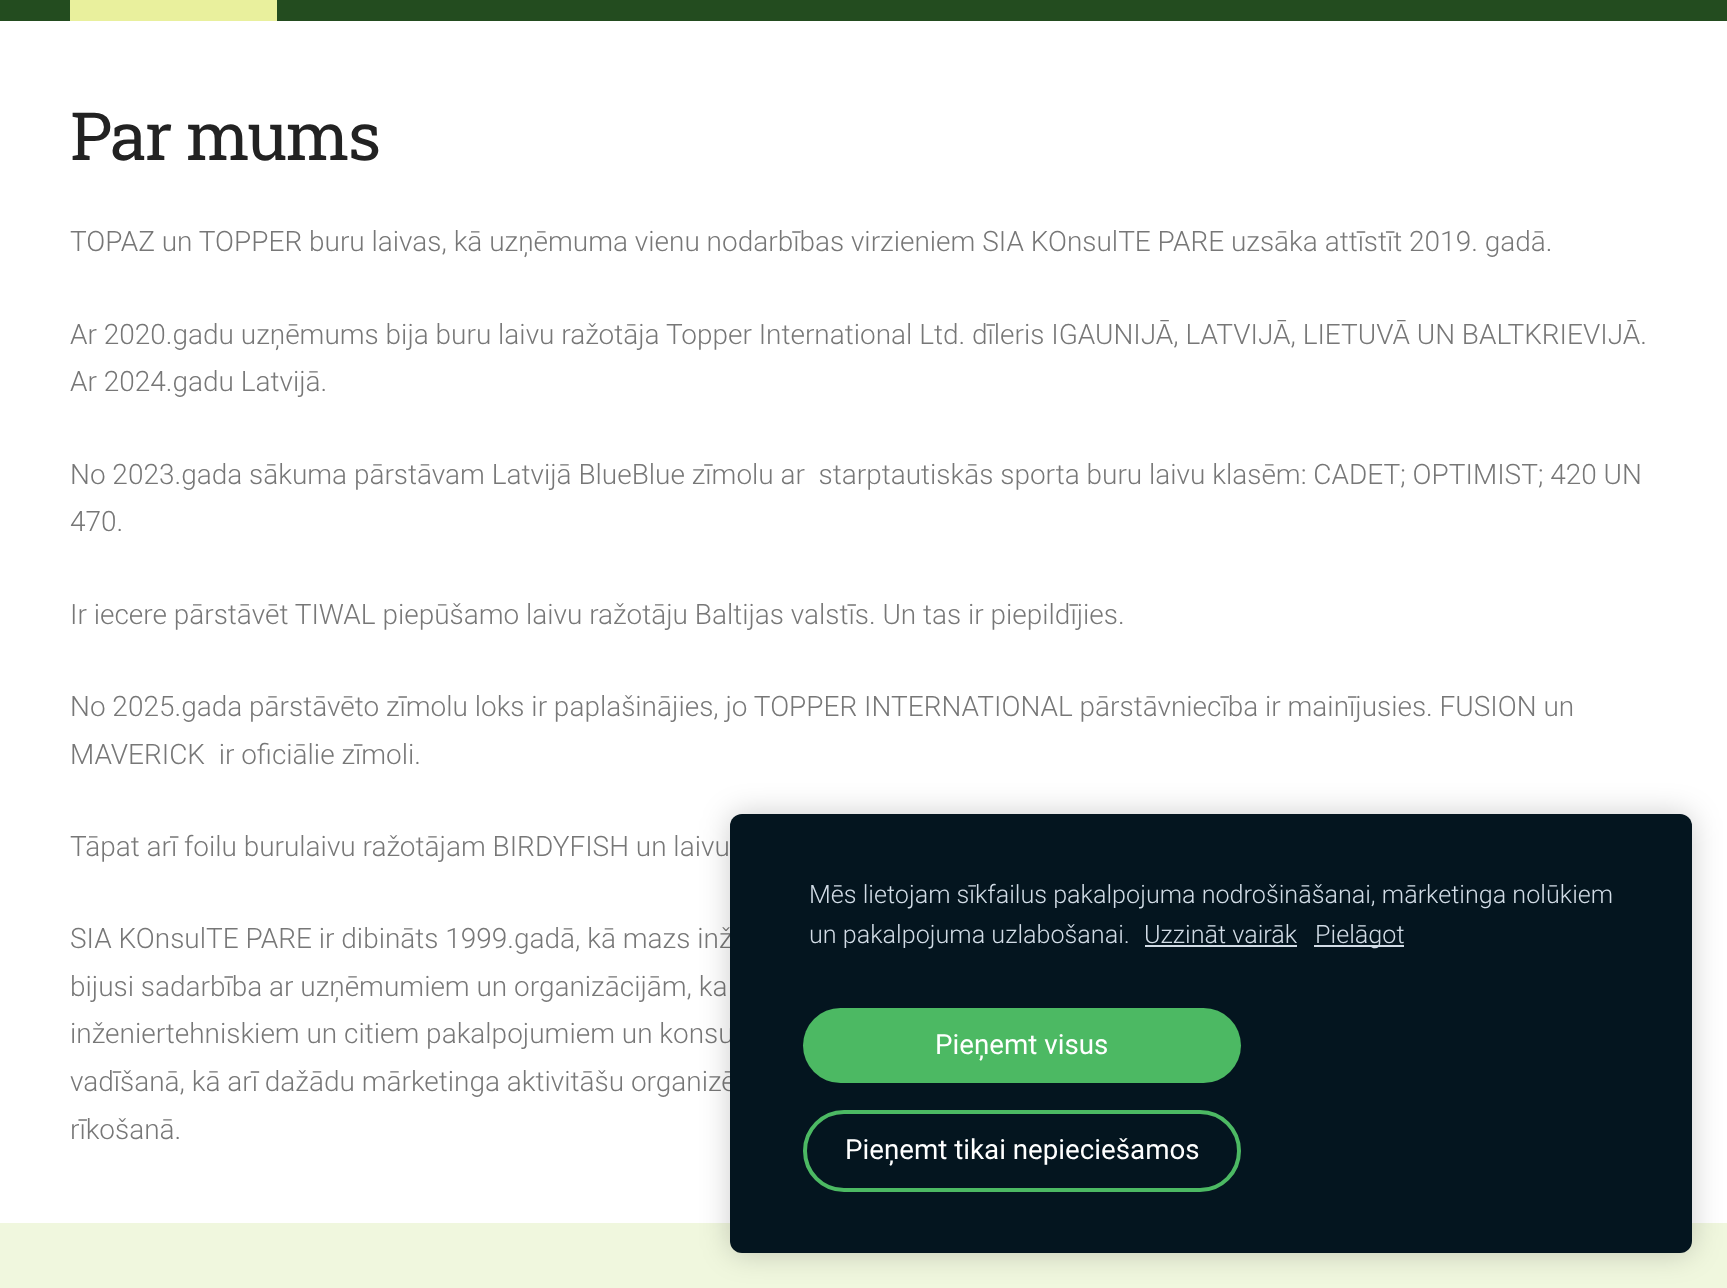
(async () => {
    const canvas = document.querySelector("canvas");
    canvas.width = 1727;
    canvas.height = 1288;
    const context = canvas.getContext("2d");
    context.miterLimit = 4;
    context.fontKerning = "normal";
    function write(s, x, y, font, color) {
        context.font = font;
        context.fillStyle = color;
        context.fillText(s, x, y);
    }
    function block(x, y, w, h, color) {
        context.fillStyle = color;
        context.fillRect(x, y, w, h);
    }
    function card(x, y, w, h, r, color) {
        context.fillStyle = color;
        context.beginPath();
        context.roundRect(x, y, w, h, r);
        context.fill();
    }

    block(0, 0, 1727, 1288, "rgb(240, 247, 222)");
    block(0, 21, 1727, 1202, "rgb(255, 255, 255)");
    block(0, 0, 1727, 21, "rgb(35, 76, 31)");
    block(70, 0, 207, 21, "rgb(233, 240, 157)");
    context.letterSpacing = "-1.75px";
    write("Par mums", 70, 160, "66.5px Roboto Slab", "rgb(34, 34, 34)");
    context.letterSpacing = "0px";
    write("TOPAZ un TOPPER buru laivas, kā uzņēmuma vienu nodarbības virzieniem SIA KOnsulTE PARE uzsāka attīstīt 2019. gadā.", 70, 251, "300 28px Roboto", "rgb(119, 119, 119)");
    write("Ar 2020.gadu uzņēmums bija buru laivu ražotāja Topper International Ltd. dīleris IGAUNIJĀ, LATVIJĀ, LIETUVĀ UN BALTKRIEVIJĀ.", 70, 344, "300 28px Roboto", "rgb(119, 119, 119)");
    write("Ar 2024.gadu Latvijā.", 70, 391, "300 28px Roboto", "rgb(119, 119, 119)");
    write("No 2023.gada sākuma pārstāvam Latvijā BlueBlue zīmolu ar  starptautiskās sporta buru laivu klasēm: CADET; OPTIMIST; 420 UN", 70, 484, "300 28px Roboto", "rgb(119, 119, 119)");
    write("470.", 70, 531, "300 28px Roboto", "rgb(119, 119, 119)");
    write("Ir iecere pārstāvēt TIWAL piepūšamo laivu ražotāju Baltijas valstīs. Un tas ir piepildījies.", 70, 624, "300 28px Roboto", "rgb(119, 119, 119)");
    write("No 2025.gada pārstāvēto zīmolu loks ir paplašinājies, jo TOPPER INTERNATIONAL pārstāvniecība ir mainījusies. FUSION un", 70, 716, "300 28px Roboto", "rgb(119, 119, 119)");
    write("MAVERICK  ir oficiālie zīmoli.", 70, 764, "300 28px Roboto", "rgb(119, 119, 119)");
    write("Tāpat arī foilu burulaivu ražotājam BIRDYFISH un laivu", 70, 856, "300 28px Roboto", "rgb(119, 119, 119)");
    write("SIA KOnsulTE PARE ir dibināts 1999.gadā, kā mazs inž", 70, 948, "300 28px Roboto", "rgb(119, 119, 119)");
    write("bijusi sadarbība ar uzņēmumiem un organizācijām, ka", 70, 996, "300 28px Roboto", "rgb(119, 119, 119)");
    write("inženiertehniskiem un citiem pakalpojumiem un konsu", 70, 1043, "300 28px Roboto", "rgb(119, 119, 119)");
    write("vadīšanā, kā arī dažādu mārketinga aktivitāšu organizē", 70, 1091, "300 28px Roboto", "rgb(119, 119, 119)");
    write("rīkošanā.", 70, 1139, "300 28px Roboto", "rgb(119, 119, 119)");
    context.fillStyle = "rgba(0, 0, 0, 0.2)";
    context.filter = "blur(15px)";
    context.beginPath();
    context.roundRect(730, 814, 962, 439, 12);
    context.fill();
    context.filter = "none";
    card(730, 814, 962, 439, 12, "rgb(4, 21, 31)");
    write("Mēs lietojam sīkfailus pakalpojuma nodrošināšanai, mārketinga nolūkiem", 809, 903, "300 25.2px Roboto", "rgb(210, 220, 230)");
    write("un pakalpojuma uzlabošanai.", 809, 943, "300 25.2px Roboto", "rgb(210, 220, 230)");
    write("Uzzināt vairāk", 1144, 943, "300 25.2px Roboto", "rgb(210, 220, 230)");
    block(1145, 945, 152, 2, "rgb(210, 220, 230)");
    block(1314, 945, 90, 2, "rgb(210, 220, 230)");
    write("Pielāgot", 1315, 943, "300 25.2px Roboto", "rgb(210, 220, 230)");
    card(803, 1008, 438, 75, 37.5, "rgb(76, 185, 99)");
    write("Pieņemt visus", 935, 1054, "27.75px Roboto", "rgb(255, 255, 255)");
    context.beginPath();
    context.roundRect(805, 1112, 434, 78, 39);
    context.strokeStyle = "rgb(76, 185, 99)";
    context.lineWidth = 4;
    context.stroke();
    write("Pieņemt tikai nepieciešamos", 845, 1159, "27.75px Roboto", "rgb(255, 255, 255)");
})();
